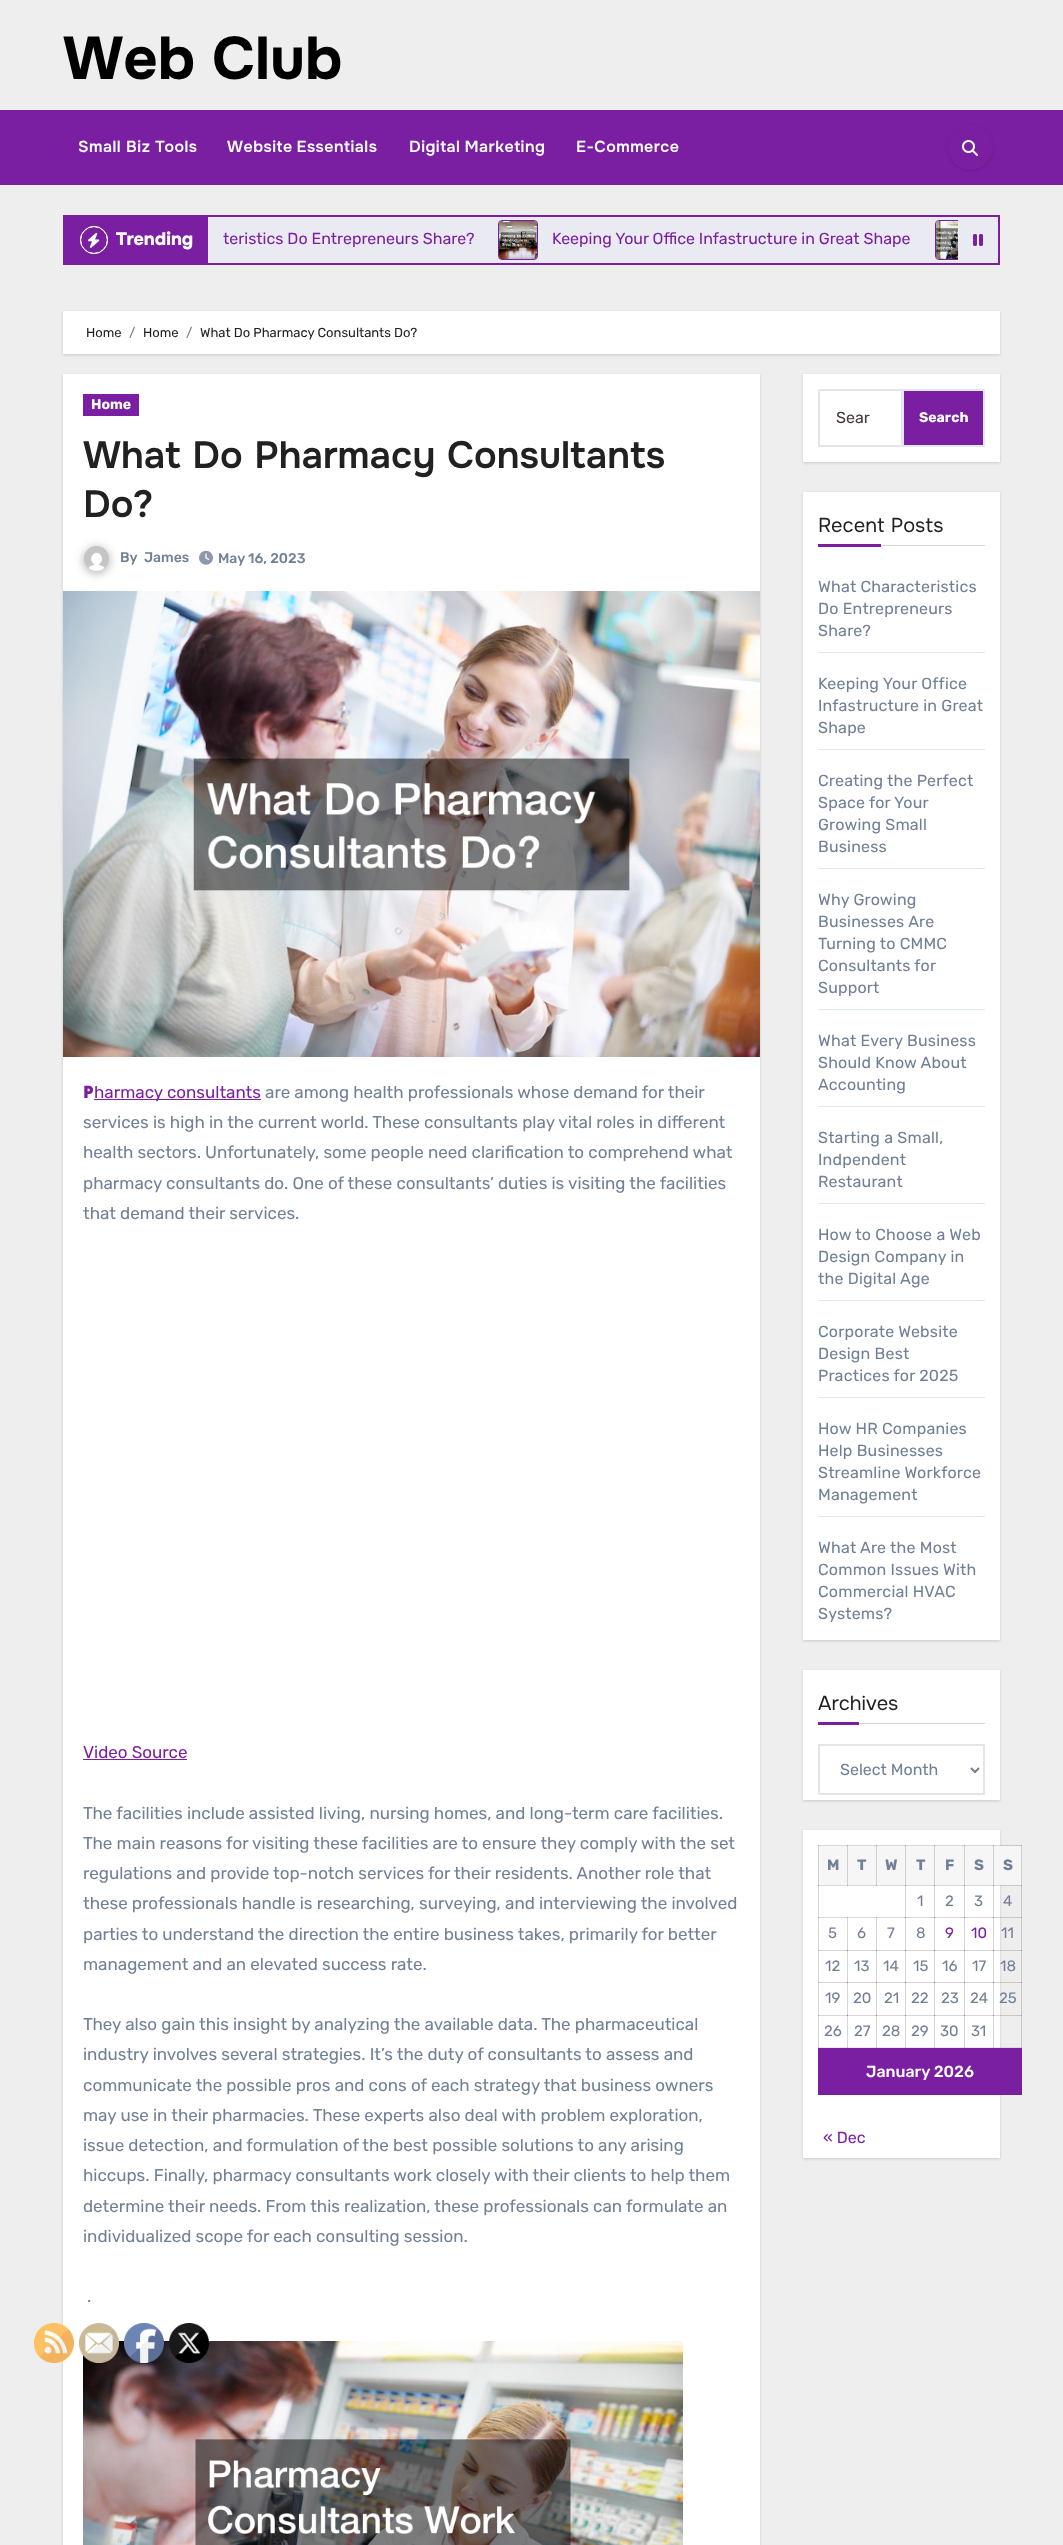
(async () => {
    const canvas = document.querySelector("canvas");
    canvas.width = 1063;
    canvas.height = 2545;
    const context = canvas.getContext("2d");
    context.miterLimit = 4;
    context.fontKerning = "normal";
    function write(s, x, y, font, color) {
        context.font = font;
        context.fillStyle = color;
        context.fillText(s, x, y);
    }
    function block(x, y, w, h, color) {
        context.fillStyle = color;
        context.fillRect(x, y, w, h);
    }
    async function photo(src, x, y, w, h) {
        const img = new Image();
        img.src = src;
        await img.decode();
        context.drawImage(img, x, y, w, h);
    }

    block(0, 0, 1063, 2545, "rgb(238, 238, 238)");
    write("Web Club", 63, 79, "bold 60px Onest", "rgb(0, 0, 0)");
    block(0, 110, 1063, 75, "rgb(123, 31, 162)");
    context.letterSpacing = "0.5px";
    write("Small Biz Tools", 78, 152, "600 16px Onest", "rgb(255, 255, 255)");
    context.wordSpacing = "-1px";
    write("Website Essentials", 227, 152, "600 16px Onest", "rgb(255, 255, 255)");
    write("Digital Marketing", 409, 152, "600 16px Onest", "rgb(255, 255, 255)");
    context.wordSpacing = "0px";
    write("E-Commerce", 576, 152, "600 16px Onest", "rgb(255, 255, 255)");
    context.fillStyle = "rgba(0, 0, 0, 0.15)";
    context.filter = "blur(1.5px)";
    context.beginPath();
    context.roundRect(948, 126, 45, 45, 22.5);
    context.fill();
    context.filter = "none";
    context.fillStyle = "rgb(123, 31, 162)";
    context.beginPath();
    context.arc(970.5, 147.5, 22.5, 0, Math.PI * 2);
    context.fill();
    await photo("media/1.png", 962, 140, 16, 16);
    block(223, 217, 735, 46, "rgb(234, 234, 243)");
    context.strokeStyle = "rgb(123, 31, 162)";
    context.lineWidth = 2;
    context.strokeRect(64, 216, 935, 48);
    block(208, 217, 15, 46, "rgb(234, 234, 243)");
    block(65, 217, 143, 46, "rgb(123, 31, 162)");
    context.beginPath();
    context.arc(94, 240, 13.5, 0, Math.PI * 2);
    context.strokeStyle = "rgb(255, 255, 255)";
    context.lineWidth = 1;
    context.stroke();
    await photo("media/2.png", 88, 232, 12, 16);
    context.beginPath();
    context.arc(94, 240, 13.5, 0, Math.PI * 2);
    context.stroke();
    context.letterSpacing = "0px";
    write("Trending", 116, 245, "800 18px Onest", "rgb(255, 255, 255)");
    context.beginPath();
    context.roundRect(498.5, 220.5, 39, 39, 3.5);
    context.strokeStyle = "rgb(123, 31, 162)";
    context.stroke();
    await photo("media/3.png", 499, 221, 38, 38);
    context.beginPath();
    context.roundRect(935.5, 220.5, 39, 39, 3.5);
    context.stroke();
    write("teristics Do Entrepreneurs Share?", 223, 244, "300 16px Rubik", "rgb(123, 31, 162)");
    write("Keeping Your Office Infastructure in Great Shape", 552, 244, "300 16px Rubik", "rgb(123, 31, 162)");
    await photo("media/4.png", 936, 221, 22, 38);
    block(958, 217, 40, 46, "rgb(234, 234, 243)");
    await photo("media/5.png", 973, 234, 10, 12);
    context.fillStyle = "rgba(0, 0, 0, 0.15)";
    context.filter = "blur(1.5px)";
    context.beginPath();
    context.rect(63, 312, 937, 43);
    context.fill();
    context.filter = "none";
    block(63, 311, 937, 43, "rgb(255, 255, 255)");
    write("Home", 86, 337, "300 13px Rubik", "rgb(33, 33, 33)");
    write("/", 129, 337, "300 13px Rubik", "rgb(108, 117, 125)");
    write("Home", 143, 337, "300 13px Rubik", "rgb(33, 33, 33)");
    write("/", 186, 337, "300 13px Rubik", "rgb(108, 117, 125)");
    write("What Do Pharmacy Consultants Do?", 200, 337, "300 13px Rubik", "rgb(33, 33, 33)");
    context.fillStyle = "rgba(0, 0, 0, 0.15)";
    context.filter = "blur(1.5px)";
    context.beginPath();
    context.rect(63, 375, 697, 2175);
    context.fill();
    context.filter = "none";
    block(63, 374, 697, 2171, "rgb(255, 255, 255)");
    block(83, 394, 56, 22, "rgb(123, 31, 162)");
    write("Home", 91, 409, "bold 14px Rubik", "rgb(255, 255, 255)");
    context.wordSpacing = "1px";
    write("What Do Pharmacy Consultants", 83, 468, "600 38px Onest", "rgb(33, 33, 33)");
    context.wordSpacing = "0px";
    write("Do?", 83, 517, "600 38px Onest", "rgb(33, 33, 33)");
    context.fillStyle = "rgba(33, 33, 33, 0.3)";
    context.filter = "blur(4px)";
    context.beginPath();
    context.roundRect(83, 547, 27, 27, 13.5);
    context.fill();
    context.filter = "none";
    await photo("media/6.png", 84, 546, 25, 25);
    write("By", 120, 562, "500 14px Rubik", "rgb(113, 128, 150)");
    write("James", 144, 562, "500 14px Rubik", "rgb(113, 128, 150)");
    await photo("media/7.png", 199, 550, 14, 15);
    write("May 16, 2023", 218, 563, "500 14px Rubik", "rgb(113, 128, 150)");
    await photo("media/8.png", 63, 591, 697, 466);
    write("P", 83, 1098, "900 17px Noto Sans", "rgb(123, 31, 162)");
    block(94, 1099, 167, 1, "rgb(123, 31, 162)");
    write("harmacy consultants", 94, 1098, "300 17px Rubik", "rgb(123, 31, 162)");
    write("are among health professionals whose demand for their", 265, 1098, "300 17px Rubik", "rgb(113, 128, 150)");
    write("services is high in the current world. These consultants play vital roles in different", 83, 1128, "300 17px Rubik", "rgb(113, 128, 150)");
    write("health sectors. Unfortunately, some people need clarification to comprehend what", 83, 1158, "300 17px Rubik", "rgb(113, 128, 150)");
    write("pharmacy consultants do. One of these consultants’ duties is visiting the facilities", 83, 1189, "300 17px Rubik", "rgb(113, 128, 150)");
    write("that demand their services.", 83, 1219, "300 17px Rubik", "rgb(113, 128, 150)");
    write("Video Source", 83, 1758, "300 17px Rubik", "rgb(123, 31, 162)");
    block(83, 1759, 104, 1, "rgb(123, 31, 162)");
    write("The facilities include assisted living, nursing homes, and long-term care facilities.", 83, 1819, "300 17px Rubik", "rgb(113, 128, 150)");
    write("The main reasons for visiting these facilities are to ensure they comply with the set", 83, 1849, "300 17px Rubik", "rgb(113, 128, 150)");
    write("regulations and provide top-notch services for their residents. Another role that", 83, 1879, "300 17px Rubik", "rgb(113, 128, 150)");
    write("these professionals handle is researching, surveying, and interviewing the involved", 83, 1909, "300 17px Rubik", "rgb(113, 128, 150)");
    write("parties to understand the direction the entire business takes, primarily for better", 83, 1940, "300 17px Rubik", "rgb(113, 128, 150)");
    write("management and an elevated success rate.", 83, 1970, "300 17px Rubik", "rgb(113, 128, 150)");
    write("They also gain this insight by analyzing the available data. The pharmaceutical", 83, 2030, "300 17px Rubik", "rgb(113, 128, 150)");
    write("industry involves several strategies. It’s the duty of consultants to assess and", 83, 2060, "300 17px Rubik", "rgb(113, 128, 150)");
    write("communicate the possible pros and cons of each strategy that business owners", 83, 2091, "300 17px Rubik", "rgb(113, 128, 150)");
    write("may use in their pharmacies. These experts also deal with problem exploration,", 83, 2121, "300 17px Rubik", "rgb(113, 128, 150)");
    write("issue detection, and formulation of the best possible solutions to any arising", 83, 2151, "300 17px Rubik", "rgb(113, 128, 150)");
    write("hiccups. Finally, pharmacy consultants work closely with their clients to help them", 83, 2181, "300 17px Rubik", "rgb(113, 128, 150)");
    write("determine their needs. From this realization, these professionals can formulate an", 83, 2212, "300 17px Rubik", "rgb(113, 128, 150)");
    write("individualized scope for each consulting session.", 83, 2242, "300 17px Rubik", "rgb(113, 128, 150)");
    write(".", 87, 2302, "300 17px Rubik", "rgb(113, 128, 150)");
    await photo("media/9.png", 83, 2341, 600, 204);
    context.fillStyle = "rgba(0, 0, 0, 0.15)";
    context.filter = "blur(1.5px)";
    context.beginPath();
    context.rect(803, 375, 197, 88);
    context.fill();
    context.filter = "none";
    block(803, 374, 197, 88, "rgb(255, 255, 255)");
    context.strokeStyle = "rgb(229, 229, 229)";
    context.lineWidth = 2;
    context.strokeRect(819, 390, 83, 56);
    write("Sear", 836, 423, "300 16px Rubik", "rgb(70, 56, 56)");
    context.fillStyle = "rgb(123, 31, 162)";
    context.beginPath();
    context.rect(903, 390, 81, 56);
    context.fill();
    context.strokeStyle = "rgb(226, 232, 240)";
    context.stroke();
    write("Search", 919, 422, "bold 14px Rubik", "rgb(255, 255, 255)");
    context.fillStyle = "rgba(0, 0, 0, 0.15)";
    context.filter = "blur(1.5px)";
    context.beginPath();
    context.rect(803, 493, 197, 1148);
    context.fill();
    context.filter = "none";
    block(803, 492, 197, 1148, "rgb(255, 255, 255)");
    block(881, 545, 104, 1, "rgb(215, 215, 215)");
    context.wordSpacing = "1px";
    write("Recent Posts", 818, 532, "20px Onest", "rgb(33, 33, 33)");
    block(818, 544, 63, 3, "rgb(123, 31, 162)");
    block(818, 652, 167, 1, "rgb(226, 232, 240)");
    context.letterSpacing = "0.2px";
    context.wordSpacing = "0px";
    write("What Characteristics", 818, 592, "300 16px Rubik", "rgb(113, 128, 150)");
    write("Do Entrepreneurs", 818, 614, "300 16px Rubik", "rgb(113, 128, 150)");
    write("Share?", 818, 636, "300 16px Rubik", "rgb(113, 128, 150)");
    block(818, 749, 167, 1, "rgb(226, 232, 240)");
    write("Keeping Your Office", 818, 689, "300 16px Rubik", "rgb(113, 128, 150)");
    write("Infastructure in Great", 818, 711, "300 16px Rubik", "rgb(113, 128, 150)");
    write("Shape", 818, 733, "300 16px Rubik", "rgb(113, 128, 150)");
    block(818, 868, 167, 1, "rgb(226, 232, 240)");
    write("Creating the Perfect", 818, 786, "300 16px Rubik", "rgb(113, 128, 150)");
    write("Space for Your", 818, 808, "300 16px Rubik", "rgb(113, 128, 150)");
    write("Growing Small", 818, 830, "300 16px Rubik", "rgb(113, 128, 150)");
    write("Business", 818, 852, "300 16px Rubik", "rgb(113, 128, 150)");
    block(818, 1009, 167, 1, "rgb(226, 232, 240)");
    write("Why Growing", 818, 905, "300 16px Rubik", "rgb(113, 128, 150)");
    write("Businesses Are", 818, 927, "300 16px Rubik", "rgb(113, 128, 150)");
    write("Turning to CMMC", 818, 949, "300 16px Rubik", "rgb(113, 128, 150)");
    write("Consultants for", 818, 971, "300 16px Rubik", "rgb(113, 128, 150)");
    write("Support", 818, 993, "300 16px Rubik", "rgb(113, 128, 150)");
    block(818, 1106, 167, 1, "rgb(226, 232, 240)");
    write("What Every Business", 818, 1046, "300 16px Rubik", "rgb(113, 128, 150)");
    write("Should Know About", 818, 1068, "300 16px Rubik", "rgb(113, 128, 150)");
    write("Accounting", 818, 1090, "300 16px Rubik", "rgb(113, 128, 150)");
    block(818, 1203, 167, 1, "rgb(226, 232, 240)");
    write("Starting a Small,", 818, 1143, "300 16px Rubik", "rgb(113, 128, 150)");
    write("Indpendent", 818, 1165, "300 16px Rubik", "rgb(113, 128, 150)");
    write("Restaurant", 818, 1187, "300 16px Rubik", "rgb(113, 128, 150)");
    block(818, 1300, 167, 1, "rgb(226, 232, 240)");
    write("How to Choose a Web", 818, 1240, "300 16px Rubik", "rgb(113, 128, 150)");
    write("Design Company in", 818, 1262, "300 16px Rubik", "rgb(113, 128, 150)");
    write("the Digital Age", 818, 1284, "300 16px Rubik", "rgb(113, 128, 150)");
    block(818, 1397, 167, 1, "rgb(226, 232, 240)");
    write("Corporate Website", 818, 1337, "300 16px Rubik", "rgb(113, 128, 150)");
    write("Design Best", 818, 1359, "300 16px Rubik", "rgb(113, 128, 150)");
    write("Practices for 2025", 818, 1381, "300 16px Rubik", "rgb(113, 128, 150)");
    block(818, 1516, 167, 1, "rgb(226, 232, 240)");
    write("How HR Companies", 818, 1434, "300 16px Rubik", "rgb(113, 128, 150)");
    write("Help Businesses", 818, 1456, "300 16px Rubik", "rgb(113, 128, 150)");
    write("Streamline Workforce", 818, 1478, "300 16px Rubik", "rgb(113, 128, 150)");
    write("Management", 818, 1500, "300 16px Rubik", "rgb(113, 128, 150)");
    write("What Are the Most", 818, 1553, "300 16px Rubik", "rgb(113, 128, 150)");
    write("Common Issues With", 818, 1575, "300 16px Rubik", "rgb(113, 128, 150)");
    write("Commercial HVAC", 818, 1597, "300 16px Rubik", "rgb(113, 128, 150)");
    write("Systems?", 818, 1619, "300 16px Rubik", "rgb(113, 128, 150)");
    context.fillStyle = "rgba(0, 0, 0, 0.15)";
    context.filter = "blur(1.5px)";
    context.beginPath();
    context.rect(803, 1671, 197, 130);
    context.fill();
    context.filter = "none";
    block(803, 1670, 197, 130, "rgb(255, 255, 255)");
    block(859, 1723, 126, 1, "rgb(215, 215, 215)");
    context.letterSpacing = "0px";
    write("Archives", 818, 1710, "20px Onest", "rgb(33, 33, 33)");
    block(818, 1722, 41, 3, "rgb(123, 31, 162)");
    context.strokeStyle = "rgb(229, 229, 229)";
    context.strokeRect(819, 1745, 165, 49);
    context.beginPath();
    context.moveTo(971, 1768);
    context.lineTo(975, 1772);
    context.lineTo(979, 1768);
    context.strokeStyle = "rgb(113, 128, 150)";
    context.stroke();
    write("Select Month", 840, 1775, "300 16px Rubik", "rgb(113, 128, 150)");
    context.fillStyle = "rgba(0, 0, 0, 0.15)";
    context.filter = "blur(1.5px)";
    context.beginPath();
    context.rect(803, 1831, 197, 328);
    context.fill();
    context.filter = "none";
    block(803, 1830, 197, 328, "rgb(255, 255, 255)");
    block(818, 1845, 204, 1, "rgba(51, 51, 51, 0.1)");
    block(818, 1846, 204, 39, "rgb(246, 246, 246)");
    block(818, 2048, 204, 47, "rgb(123, 31, 162)");
    block(1021, 1845, 1, 250, "rgba(51, 51, 51, 0.1)");
    block(818, 2094, 204, 1, "rgba(51, 51, 51, 0.1)");
    block(818, 1845, 1, 250, "rgba(51, 51, 51, 0.1)");
    block(993, 1845, 29, 1, "rgba(51, 51, 51, 0.1)");
    block(993, 1885, 29, 1, "rgba(51, 51, 51, 0.1)");
    block(993, 1917, 29, 1, "rgba(51, 51, 51, 0.1)");
    block(993, 1950, 29, 1, "rgba(51, 51, 51, 0.1)");
    block(993, 1982, 29, 1, "rgba(51, 51, 51, 0.1)");
    block(993, 2015, 29, 1, "rgba(51, 51, 51, 0.1)");
    block(1021, 2015, 1, 33, "rgba(51, 51, 51, 0.1)");
    block(1021, 1982, 1, 34, "rgba(51, 51, 51, 0.1)");
    block(1021, 1950, 1, 33, "rgba(51, 51, 51, 0.1)");
    block(1021, 1917, 1, 34, "rgba(51, 51, 51, 0.1)");
    block(1021, 1885, 1, 33, "rgba(51, 51, 51, 0.1)");
    block(1021, 1845, 1, 41, "rgba(51, 51, 51, 0.1)");
    block(993, 2047, 29, 1, "rgba(51, 51, 51, 0.1)");
    block(993, 2015, 1, 33, "rgba(51, 51, 51, 0.1)");
    block(964, 2015, 30, 1, "rgba(51, 51, 51, 0.1)");
    block(993, 2015, 1, 33, "rgba(51, 51, 51, 0.1)");
    block(993, 2015, 29, 1, "rgba(51, 51, 51, 0.1)");
    block(993, 1982, 1, 34, "rgba(51, 51, 51, 0.1)");
    block(964, 1982, 30, 1, "rgba(51, 51, 51, 0.1)");
    block(993, 1982, 1, 34, "rgba(51, 51, 51, 0.1)");
    block(993, 1982, 29, 1, "rgba(51, 51, 51, 0.1)");
    block(993, 1950, 1, 33, "rgba(51, 51, 51, 0.1)");
    block(964, 1950, 30, 1, "rgba(51, 51, 51, 0.1)");
    block(993, 1950, 1, 33, "rgba(51, 51, 51, 0.1)");
    block(993, 1950, 29, 1, "rgba(51, 51, 51, 0.1)");
    block(993, 1917, 1, 34, "rgba(51, 51, 51, 0.1)");
    block(964, 1917, 30, 1, "rgba(51, 51, 51, 0.1)");
    block(993, 1917, 1, 34, "rgba(51, 51, 51, 0.1)");
    block(993, 1917, 29, 1, "rgba(51, 51, 51, 0.1)");
    block(993, 1885, 1, 33, "rgba(51, 51, 51, 0.1)");
    block(964, 1885, 30, 1, "rgba(51, 51, 51, 0.1)");
    block(993, 1885, 1, 33, "rgba(51, 51, 51, 0.1)");
    block(993, 1885, 29, 1, "rgba(51, 51, 51, 0.1)");
    block(993, 1845, 1, 41, "rgba(51, 51, 51, 0.1)");
    block(964, 1845, 30, 1, "rgba(51, 51, 51, 0.1)");
    block(993, 1845, 1, 41, "rgba(51, 51, 51, 0.1)");
    block(964, 2047, 30, 1, "rgba(51, 51, 51, 0.1)");
    block(964, 2015, 1, 33, "rgba(51, 51, 51, 0.1)");
    block(934, 2015, 31, 1, "rgba(51, 51, 51, 0.1)");
    block(964, 2015, 1, 33, "rgba(51, 51, 51, 0.1)");
    block(964, 2015, 30, 1, "rgba(51, 51, 51, 0.1)");
    block(964, 1982, 1, 34, "rgba(51, 51, 51, 0.1)");
    block(934, 1982, 31, 1, "rgba(51, 51, 51, 0.1)");
    block(964, 1982, 1, 34, "rgba(51, 51, 51, 0.1)");
    block(964, 1982, 30, 1, "rgba(51, 51, 51, 0.1)");
    block(964, 1950, 1, 33, "rgba(51, 51, 51, 0.1)");
    block(934, 1950, 31, 1, "rgba(51, 51, 51, 0.1)");
    block(964, 1950, 1, 33, "rgba(51, 51, 51, 0.1)");
    block(964, 1950, 30, 1, "rgba(51, 51, 51, 0.1)");
    block(964, 1917, 1, 34, "rgba(51, 51, 51, 0.1)");
    block(934, 1917, 31, 1, "rgba(51, 51, 51, 0.1)");
    block(964, 1917, 1, 34, "rgba(51, 51, 51, 0.1)");
    block(964, 1917, 30, 1, "rgba(51, 51, 51, 0.1)");
    block(964, 1885, 1, 33, "rgba(51, 51, 51, 0.1)");
    block(934, 1885, 31, 1, "rgba(51, 51, 51, 0.1)");
    block(964, 1885, 1, 33, "rgba(51, 51, 51, 0.1)");
    block(964, 1885, 30, 1, "rgba(51, 51, 51, 0.1)");
    block(964, 1845, 1, 41, "rgba(51, 51, 51, 0.1)");
    block(934, 1845, 31, 1, "rgba(51, 51, 51, 0.1)");
    block(964, 1845, 1, 41, "rgba(51, 51, 51, 0.1)");
    block(934, 2047, 31, 1, "rgba(51, 51, 51, 0.1)");
    block(934, 2015, 1, 33, "rgba(51, 51, 51, 0.1)");
    block(905, 2015, 30, 1, "rgba(51, 51, 51, 0.1)");
    block(934, 2015, 1, 33, "rgba(51, 51, 51, 0.1)");
    block(934, 2015, 31, 1, "rgba(51, 51, 51, 0.1)");
    block(934, 1982, 1, 34, "rgba(51, 51, 51, 0.1)");
    block(905, 1982, 30, 1, "rgba(51, 51, 51, 0.1)");
    block(934, 1982, 1, 34, "rgba(51, 51, 51, 0.1)");
    block(934, 1982, 31, 1, "rgba(51, 51, 51, 0.1)");
    block(934, 1950, 1, 33, "rgba(51, 51, 51, 0.1)");
    block(905, 1950, 30, 1, "rgba(51, 51, 51, 0.1)");
    block(934, 1950, 1, 33, "rgba(51, 51, 51, 0.1)");
    block(934, 1950, 31, 1, "rgba(51, 51, 51, 0.1)");
    block(934, 1917, 1, 34, "rgba(51, 51, 51, 0.1)");
    block(905, 1917, 30, 1, "rgba(51, 51, 51, 0.1)");
    block(934, 1917, 1, 34, "rgba(51, 51, 51, 0.1)");
    block(934, 1917, 31, 1, "rgba(51, 51, 51, 0.1)");
    block(934, 1885, 1, 33, "rgba(51, 51, 51, 0.1)");
    block(905, 1885, 30, 1, "rgba(51, 51, 51, 0.1)");
    block(934, 1885, 1, 33, "rgba(51, 51, 51, 0.1)");
    block(934, 1885, 31, 1, "rgba(51, 51, 51, 0.1)");
    block(934, 1845, 1, 41, "rgba(51, 51, 51, 0.1)");
    block(905, 1845, 30, 1, "rgba(51, 51, 51, 0.1)");
    block(934, 1845, 1, 41, "rgba(51, 51, 51, 0.1)");
    block(905, 2047, 30, 1, "rgba(51, 51, 51, 0.1)");
    block(905, 2015, 1, 33, "rgba(51, 51, 51, 0.1)");
    block(876, 2015, 30, 1, "rgba(51, 51, 51, 0.1)");
    block(905, 2015, 1, 33, "rgba(51, 51, 51, 0.1)");
    block(905, 2015, 30, 1, "rgba(51, 51, 51, 0.1)");
    block(905, 1982, 1, 34, "rgba(51, 51, 51, 0.1)");
    block(876, 1982, 30, 1, "rgba(51, 51, 51, 0.1)");
    block(905, 1982, 1, 34, "rgba(51, 51, 51, 0.1)");
    block(905, 1982, 30, 1, "rgba(51, 51, 51, 0.1)");
    block(905, 1950, 1, 33, "rgba(51, 51, 51, 0.1)");
    block(876, 1950, 30, 1, "rgba(51, 51, 51, 0.1)");
    block(905, 1950, 1, 33, "rgba(51, 51, 51, 0.1)");
    block(905, 1950, 30, 1, "rgba(51, 51, 51, 0.1)");
    block(905, 1917, 1, 34, "rgba(51, 51, 51, 0.1)");
    block(876, 1917, 30, 1, "rgba(51, 51, 51, 0.1)");
    block(905, 1917, 1, 34, "rgba(51, 51, 51, 0.1)");
    block(905, 1917, 30, 1, "rgba(51, 51, 51, 0.1)");
    block(905, 1885, 1, 33, "rgba(51, 51, 51, 0.1)");
    block(818, 1885, 88, 1, "rgba(51, 51, 51, 0.1)");
    block(905, 1885, 1, 33, "rgba(51, 51, 51, 0.1)");
    block(905, 1885, 30, 1, "rgba(51, 51, 51, 0.1)");
    block(905, 1845, 1, 41, "rgba(51, 51, 51, 0.1)");
    block(876, 1845, 30, 1, "rgba(51, 51, 51, 0.1)");
    block(905, 1845, 1, 41, "rgba(51, 51, 51, 0.1)");
    block(876, 1885, 30, 1, "rgba(51, 51, 51, 0.1)");
    block(876, 1845, 1, 41, "rgba(51, 51, 51, 0.1)");
    block(847, 1845, 30, 1, "rgba(51, 51, 51, 0.1)");
    block(876, 1845, 1, 41, "rgba(51, 51, 51, 0.1)");
    block(847, 1885, 30, 1, "rgba(51, 51, 51, 0.1)");
    block(847, 1845, 1, 41, "rgba(51, 51, 51, 0.1)");
    block(818, 1845, 30, 1, "rgba(51, 51, 51, 0.1)");
    block(847, 1845, 1, 41, "rgba(51, 51, 51, 0.1)");
    block(876, 2047, 30, 1, "rgba(51, 51, 51, 0.1)");
    block(876, 2015, 1, 33, "rgba(51, 51, 51, 0.1)");
    block(847, 2015, 30, 1, "rgba(51, 51, 51, 0.1)");
    block(876, 2015, 1, 33, "rgba(51, 51, 51, 0.1)");
    block(876, 2015, 30, 1, "rgba(51, 51, 51, 0.1)");
    block(876, 1982, 1, 34, "rgba(51, 51, 51, 0.1)");
    block(847, 1982, 30, 1, "rgba(51, 51, 51, 0.1)");
    block(876, 1982, 1, 34, "rgba(51, 51, 51, 0.1)");
    block(876, 1982, 30, 1, "rgba(51, 51, 51, 0.1)");
    block(876, 1950, 1, 33, "rgba(51, 51, 51, 0.1)");
    block(847, 1950, 30, 1, "rgba(51, 51, 51, 0.1)");
    block(876, 1950, 1, 33, "rgba(51, 51, 51, 0.1)");
    block(876, 1950, 30, 1, "rgba(51, 51, 51, 0.1)");
    block(876, 1917, 1, 34, "rgba(51, 51, 51, 0.1)");
    block(847, 1917, 30, 1, "rgba(51, 51, 51, 0.1)");
    block(876, 1917, 1, 34, "rgba(51, 51, 51, 0.1)");
    block(847, 2047, 30, 1, "rgba(51, 51, 51, 0.1)");
    block(847, 2015, 1, 33, "rgba(51, 51, 51, 0.1)");
    block(818, 2015, 30, 1, "rgba(51, 51, 51, 0.1)");
    block(847, 2015, 1, 33, "rgba(51, 51, 51, 0.1)");
    block(847, 2015, 30, 1, "rgba(51, 51, 51, 0.1)");
    block(847, 1982, 1, 34, "rgba(51, 51, 51, 0.1)");
    block(818, 1982, 30, 1, "rgba(51, 51, 51, 0.1)");
    block(847, 1982, 1, 34, "rgba(51, 51, 51, 0.1)");
    block(847, 1982, 30, 1, "rgba(51, 51, 51, 0.1)");
    block(847, 1950, 1, 33, "rgba(51, 51, 51, 0.1)");
    block(818, 1950, 30, 1, "rgba(51, 51, 51, 0.1)");
    block(847, 1950, 1, 33, "rgba(51, 51, 51, 0.1)");
    block(847, 1950, 30, 1, "rgba(51, 51, 51, 0.1)");
    block(847, 1917, 1, 34, "rgba(51, 51, 51, 0.1)");
    block(818, 1917, 30, 1, "rgba(51, 51, 51, 0.1)");
    block(847, 1917, 1, 34, "rgba(51, 51, 51, 0.1)");
    block(818, 2047, 30, 1, "rgba(51, 51, 51, 0.1)");
    block(818, 2015, 1, 33, "rgba(51, 51, 51, 0.1)");
    block(818, 2015, 30, 1, "rgba(51, 51, 51, 0.1)");
    block(818, 1982, 1, 34, "rgba(51, 51, 51, 0.1)");
    block(818, 1982, 30, 1, "rgba(51, 51, 51, 0.1)");
    block(818, 1950, 1, 33, "rgba(51, 51, 51, 0.1)");
    block(818, 1950, 30, 1, "rgba(51, 51, 51, 0.1)");
    block(818, 1917, 1, 34, "rgba(51, 51, 51, 0.1)");
    block(818, 1917, 88, 1, "rgba(51, 51, 51, 0.1)");
    block(818, 1885, 1, 33, "rgba(51, 51, 51, 0.1)");
    block(818, 1885, 30, 1, "rgba(51, 51, 51, 0.1)");
    block(818, 1845, 1, 41, "rgba(51, 51, 51, 0.1)");
    write("M", 827, 1870, "bold 15px Rubik", "rgb(113, 128, 150)");
    write("T", 857, 1870, "bold 15px Rubik", "rgb(113, 128, 150)");
    write("W", 885, 1870, "bold 15px Rubik", "rgb(113, 128, 150)");
    write("T", 916, 1870, "bold 15px Rubik", "rgb(113, 128, 150)");
    write("F", 945, 1870, "bold 15px Rubik", "rgb(113, 128, 150)");
    write("S", 974, 1870, "bold 15px Rubik", "rgb(113, 128, 150)");
    write("S", 1003, 1870, "bold 15px Rubik", "rgb(113, 128, 150)");
    write("1", 917, 1906, "300 15px Rubik", "rgb(113, 128, 150)");
    write("2", 945, 1906, "300 15px Rubik", "rgb(113, 128, 150)");
    write("3", 974, 1906, "300 15px Rubik", "rgb(113, 128, 150)");
    write("4", 1003, 1906, "300 15px Rubik", "rgb(113, 128, 150)");
    write("5", 828, 1938, "300 15px Rubik", "rgb(113, 128, 150)");
    write("6", 857, 1938, "300 15px Rubik", "rgb(113, 128, 150)");
    write("7", 887, 1938, "300 15px Rubik", "rgb(113, 128, 150)");
    write("8", 916, 1938, "300 15px Rubik", "rgb(113, 128, 150)");
    write("9", 945, 1938, "300 15px Rubik", "rgb(123, 31, 162)");
    write("10", 971, 1938, "300 15px Rubik", "rgb(123, 31, 162)");
    write("11", 1001, 1938, "300 15px Rubik", "rgb(113, 128, 150)");
    write("12", 825, 1971, "300 15px Rubik", "rgb(113, 128, 150)");
    write("13", 854, 1971, "300 15px Rubik", "rgb(113, 128, 150)");
    write("14", 883, 1971, "300 15px Rubik", "rgb(113, 128, 150)");
    write("15", 913, 1971, "300 15px Rubik", "rgb(113, 128, 150)");
    write("16", 942, 1971, "300 15px Rubik", "rgb(113, 128, 150)");
    write("17", 972, 1971, "300 15px Rubik", "rgb(113, 128, 150)");
    write("18", 1000, 1971, "300 15px Rubik", "rgb(113, 128, 150)");
    write("19", 825, 2003, "300 15px Rubik", "rgb(113, 128, 150)");
    write("20", 853, 2003, "300 15px Rubik", "rgb(113, 128, 150)");
    write("21", 884, 2003, "300 15px Rubik", "rgb(113, 128, 150)");
    write("22", 911, 2003, "300 15px Rubik", "rgb(113, 128, 150)");
    write("23", 941, 2003, "300 15px Rubik", "rgb(113, 128, 150)");
    write("24", 970, 2003, "300 15px Rubik", "rgb(113, 128, 150)");
    write("25", 999, 2003, "300 15px Rubik", "rgb(113, 128, 150)");
    write("26", 824, 2036, "300 15px Rubik", "rgb(113, 128, 150)");
    write("27", 854, 2036, "300 15px Rubik", "rgb(113, 128, 150)");
    write("28", 882, 2036, "300 15px Rubik", "rgb(113, 128, 150)");
    write("29", 911, 2036, "300 15px Rubik", "rgb(113, 128, 150)");
    write("30", 940, 2036, "300 15px Rubik", "rgb(113, 128, 150)");
    write("31", 971, 2036, "300 15px Rubik", "rgb(113, 128, 150)");
    write("January 2026", 866, 2077, "500 16px Rubik", "rgb(255, 255, 255)");
    write("« Dec", 823, 2143, "300 16px Rubik", "rgb(123, 31, 162)");
    await photo("media/10.png", 34, 2323, 40, 40);
    await photo("media/11.png", 79, 2323, 40, 40);
    await photo("media/12.png", 124, 2323, 40, 40);
    await photo("media/13.png", 169, 2323, 40, 40);
})();
